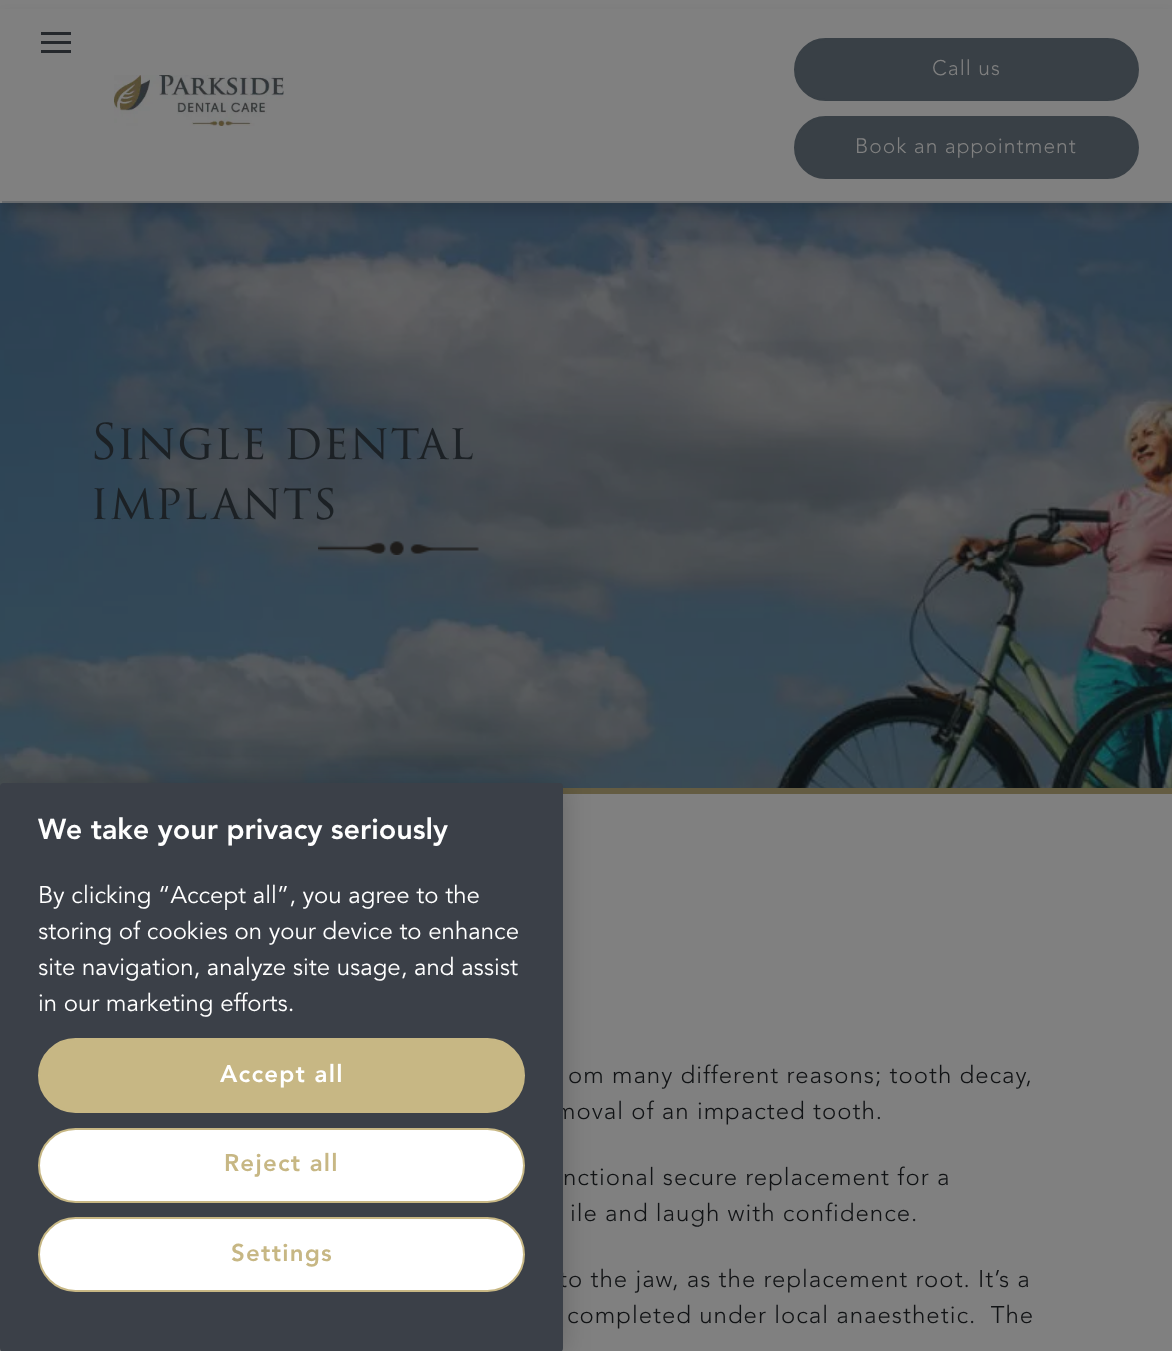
(async () => {
    const canvas = document.querySelector("canvas");
    canvas.width = 1172;
    canvas.height = 1351;
    const context = canvas.getContext("2d");
    context.miterLimit = 4;
    context.fontKerning = "normal";
    function write(s, x, y, font, color) {
        context.font = font;
        context.fillStyle = color;
        context.fillText(s, x, y);
    }
    function block(x, y, w, h, color) {
        context.fillStyle = color;
        context.fillRect(x, y, w, h);
    }
    function card(x, y, w, h, r, color) {
        context.fillStyle = color;
        context.beginPath();
        context.roundRect(x, y, w, h, r);
        context.fill();
    }
    async function photo(src, x, y, w, h) {
        const img = new Image();
        img.src = src;
        await img.decode();
        context.drawImage(img, x, y, w, h);
    }

    block(0, 0, 1172, 1351, "rgb(128, 128, 128)");
    await photo("media/2.png", 0, 203, 1172, 585);
    context.fillStyle = "rgba(0, 0, 0, 0.12)";
    context.filter = "blur(6px)";
    context.beginPath();
    context.rect(3, 15, 1167, 197);
    context.fill();
    context.filter = "none";
    block(0, 9, 1172, 194, "rgb(128, 128, 128)");
    block(41, 32, 30, 3, "rgb(37, 40, 44)");
    block(41, 41, 30, 3, "rgb(37, 40, 44)");
    block(41, 50, 30, 3, "rgb(37, 40, 44)");
    block(2, 201, 1170, 2, "rgb(103, 106, 109)");
    await photo("media/1.png", 114, 75, 170, 51);
    context.fillStyle = "rgb(57, 64, 70)";
    context.beginPath();
    context.roundRect(795, 39, 343, 61, 30.5);
    context.fill();
    context.strokeStyle = "rgb(57, 64, 70)";
    context.lineWidth = 2;
    context.stroke();
    context.letterSpacing = "1px";
    write("Call us", 932, 75, "21px Avenir", "rgb(128, 128, 128)");
    context.fillStyle = "rgb(57, 64, 70)";
    context.beginPath();
    context.roundRect(795, 117, 343, 61, 30.5);
    context.fill();
    context.stroke();
    write("Book an appointment", 855, 153, "21px Avenir", "rgb(128, 128, 128)");
    block(563, 788, 609, 6, "rgb(100, 92, 66)");
    context.letterSpacing = "0.75px";
    write("Single dental", 90, 459, "48px 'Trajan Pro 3'", "rgb(28, 33, 37)");
    write("implants", 90, 519, "48px 'Trajan Pro 3'", "rgb(28, 33, 37)");
    await photo("media/3.png", 318, 541, 161, 14);
    context.fillStyle = "rgba(0, 0, 0, 0.2)";
    context.filter = "blur(13.5px)";
    context.beginPath();
    context.roundRect(0, 783, 563, 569, 4);
    context.fill();
    context.filter = "none";
    context.letterSpacing = "1px";
    write("moval of an impacted tooth.", 555, 1119, "24px Avenir", "rgb(17, 19, 21)");
    write("to the jaw, as the replacement root. It’s a", 559, 1287, "24px Avenir", "rgb(17, 19, 21)");
    card(0, 783, 563, 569, 4, "rgb(59, 64, 72)");
    context.letterSpacing = "0px";
    write("We take your privacy seriously", 38, 839, "28.75px 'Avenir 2'", "rgb(255, 255, 255)");
    write("By clicking “Accept all”, you agree to the", 38, 903, "24px 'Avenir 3'", "rgb(255, 255, 255)");
    write("storing of cookies on your device to enhance", 38, 939, "24px 'Avenir 3'", "rgb(255, 255, 255)");
    write("site navigation, analyze site usage, and assist", 38, 975, "24px 'Avenir 3'", "rgb(255, 255, 255)");
    write("in our marketing efforts.", 38, 1011, "24px 'Avenir 3'", "rgb(255, 255, 255)");
    context.fillStyle = "rgb(199, 183, 132)";
    context.beginPath();
    context.roundRect(39, 1039, 485, 73, 36.5);
    context.fill();
    context.strokeStyle = "rgb(199, 183, 132)";
    context.stroke();
    context.letterSpacing = "1.25px";
    write("Accept all", 220, 1082, "24px 'Avenir 2'", "rgb(255, 255, 255)");
    context.beginPath();
    context.roundRect(39, 1129, 485, 73, 36.5);
    context.fill();
    context.stroke();
    write("Reject all", 224, 1171, "24px 'Avenir 2'", "rgb(199, 183, 132)");
    context.fillStyle = "rgb(255, 255, 255)";
    context.beginPath();
    context.roundRect(39, 1218, 485, 73, 36.5);
    context.fill();
    context.stroke();
    write("Settings", 231, 1261, "24px 'Avenir 2'", "rgb(199, 183, 132)");
    context.letterSpacing = "1px";
    write("om many different reasons; tooth decay,", 568, 1083, "24px Avenir", "rgb(17, 19, 21)");
    write("nctional secure replacement for a", 563, 1185, "24px Avenir", "rgb(17, 19, 21)");
    write("ile and laugh with confidence.", 570, 1221, "24px Avenir", "rgb(17, 19, 21)");
    write("completed under local anaesthetic.  The", 567, 1323, "24px Avenir", "rgb(17, 19, 21)");
})();
